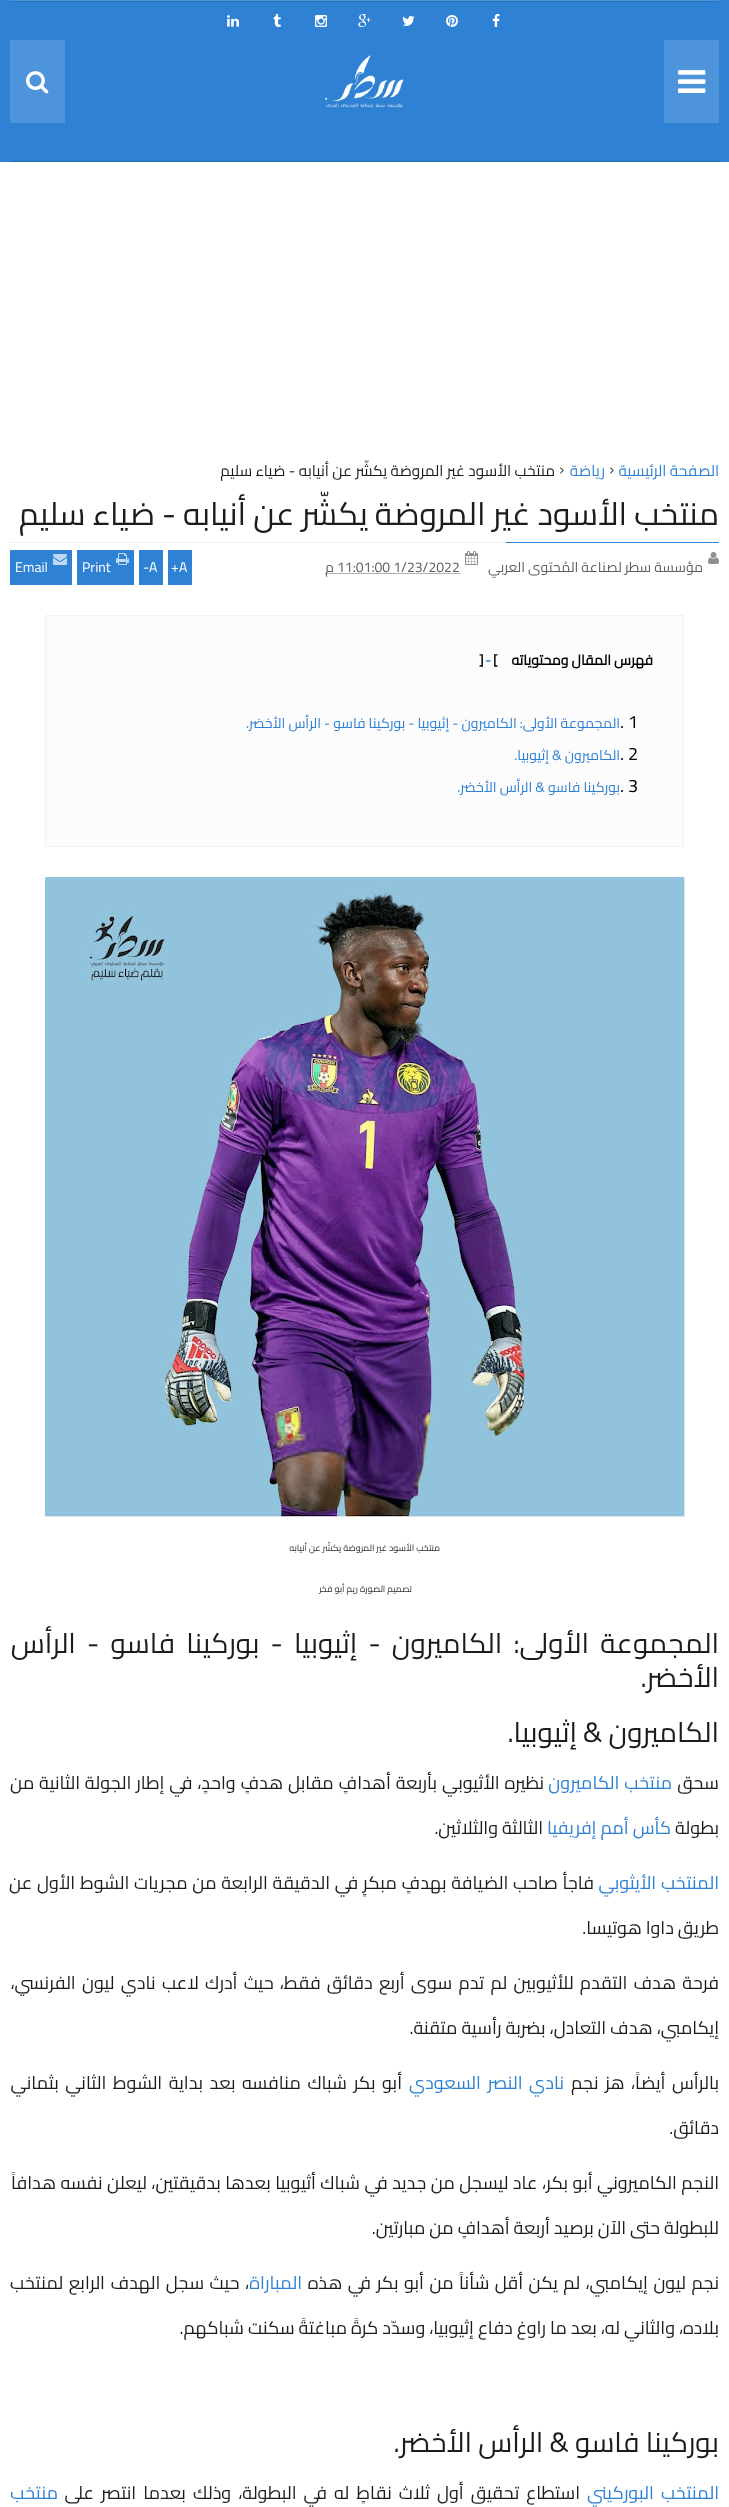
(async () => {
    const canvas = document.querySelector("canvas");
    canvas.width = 729;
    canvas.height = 2507;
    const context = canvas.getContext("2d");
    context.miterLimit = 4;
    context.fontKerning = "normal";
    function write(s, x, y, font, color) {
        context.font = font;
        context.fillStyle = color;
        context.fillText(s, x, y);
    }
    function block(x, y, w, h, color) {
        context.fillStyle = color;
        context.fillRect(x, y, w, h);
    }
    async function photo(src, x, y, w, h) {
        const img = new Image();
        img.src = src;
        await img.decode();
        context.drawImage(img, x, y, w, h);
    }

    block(0, 0, 729, 2507, "rgb(255, 255, 255)");
    block(0, 0, 729, 162, "rgb(47, 129, 211)");
    block(10, 0, 709, 1, "rgb(78, 148, 218)");
    block(10, 1, 709, 1, "rgb(42, 115, 188)");
    await photo("media/1.png", 492, 14, 8, 13);
    await photo("media/2.png", 446, 15, 12, 12);
    await photo("media/3.png", 402, 16, 13, 10);
    await photo("media/4.png", 358, 14, 13, 13);
    await photo("media/5.png", 315, 15, 12, 12);
    await photo("media/6.png", 273, 14, 8, 13);
    await photo("media/7.png", 227, 15, 12, 12);
    await photo("media/8.png", 325, 55, 79, 53);
    block(664, 40, 55, 83, "rgb(78, 148, 218)");
    await photo("media/9.png", 678, 70, 28, 23);
    block(10, 40, 55, 83, "rgb(78, 148, 218)");
    await photo("media/10.png", 26, 71, 23, 23);
    block(10, 161, 709, 1, "rgb(38, 103, 169)");
    context.direction = "rtl";
    write("الصفحة الرئيسية", 719, 476, "15.3px Cairo", "rgb(47, 129, 211)");
    await photo("media/11.png", 610, 467, 4, 7);
    write("رياضة", 605, 476, "15.3px Cairo", "rgb(47, 129, 211)");
    await photo("media/11.png", 560, 467, 4, 7);
    write("منتخب الأسود غير المروضة يكشّر عن أنيابه - ضياء سليم", 555, 476, "15.3px Cairo", "rgb(28, 28, 28)");
    write("منتخب الأسود غير المروضة يكشّر عن أنيابه - ضياء سليم", 719, 525, "32px Cairo", "rgb(28, 28, 28)");
    block(506, 542, 213, 1, "rgb(47, 129, 211)");
    block(10, 542, 496, 1, "rgb(238, 238, 238)");
    await photo("media/12.png", 708, 552, 11, 12);
    write("مؤسسة سطر لصناعة المُحتوى العربي", 703, 572, "14px Cairo", "rgb(96, 96, 96)");
    await photo("media/13.png", 465, 551, 13, 14);
    context.direction = "ltr";
    write("11:01:00 1/23/2022", 337, 572, "14px Cairo", "rgb(96, 96, 96)");
    context.beginPath();
    context.moveTo(337.5, 573.5);
    context.lineTo(390.5, 573.5);
    context.strokeStyle = "rgb(96, 96, 96)";
    context.setLineDash([1, 1]);
    context.stroke();
    context.beginPath();
    context.moveTo(390.5, 573.5);
    context.lineTo(391.5, 573.5);
    context.moveTo(392.5, 573.5);
    context.lineTo(393.5, 573.5);
    context.setLineDash([]);
    context.stroke();
    context.beginPath();
    context.moveTo(393.5, 573.5);
    context.lineTo(460, 573.5);
    context.setLineDash([1, 1]);
    context.stroke();
    context.beginPath();
    context.moveTo(325.5, 573.5);
    context.lineTo(337.5, 573.5);
    context.stroke();
    context.direction = "rtl";
    write("م", 334, 572, "14px Cairo", "rgb(96, 96, 96)");
    block(168, 550, 24, 35, "rgb(47, 129, 211)");
    context.direction = "ltr";
    write("A", 179, 572, "14px Cairo", "rgb(255, 255, 255)");
    write("+", 171, 572, "14px Cairo", "rgb(255, 255, 255)");
    block(139, 550, 24, 35, "rgb(47, 129, 211)");
    write("A", 149, 572, "14px Cairo", "rgb(255, 255, 255)");
    write("-", 143, 572, "14px Cairo", "rgb(255, 255, 255)");
    block(77, 550, 57, 35, "rgb(47, 129, 211)");
    await photo("media/14.png", 116, 553, 13, 12);
    write("Print", 82, 572, "14px Cairo", "rgb(255, 255, 255)");
    block(10, 550, 62, 35, "rgb(47, 129, 211)");
    await photo("media/15.png", 53, 554, 14, 11);
    write("Email", 15, 572, "14px Cairo", "rgb(255, 255, 255)");
    context.fillStyle = "rgb(252, 252, 252)";
    context.beginPath();
    context.rect(45.5, 615.5, 638, 231);
    context.fill();
    context.strokeStyle = "rgb(242, 242, 242)";
    context.setLineDash([]);
    context.stroke();
    context.direction = "rtl";
    write("فهرس المقال ومحتوياته", 653, 665, "bold 14px Cairo", "rgb(0, 0, 0)");
    context.direction = "ltr";
    write("[", 493, 665, "bold 14px Cairo", "rgb(0, 0, 0)");
    write("-", 485, 665, "bold 14px Cairo", "rgb(47, 129, 211)");
    write("]", 479, 665, "bold 14px Cairo", "rgb(0, 0, 0)");
    write(". 1", 620, 728, "18px Cairo", "rgb(0, 0, 0)");
    context.direction = "rtl";
    write("المجموعة الأولى: الكاميرون - إثيوبيا - بوركينا فاسو - الرأس الأخضر.", 620, 728, "14px Cairo", "rgb(47, 129, 211)");
    context.direction = "ltr";
    write(". 2", 620, 760, "18px Cairo", "rgb(0, 0, 0)");
    context.direction = "rtl";
    write("الكاميرون & إثيوبيا.", 620, 760, "14px Cairo", "rgb(47, 129, 211)");
    context.direction = "ltr";
    write(". 3", 620, 792, "18px Cairo", "rgb(0, 0, 0)");
    context.direction = "rtl";
    write("بوركينا فاسو & الرأس الأخضر.", 620, 792, "14px Cairo", "rgb(47, 129, 211)");
    await photo("media/16.png", 45, 877, 640, 640);
    write("منتخب الأسود غير المروضة يكشّر عن أنيابه", 440, 1551, "9px Cairo", "rgb(51, 51, 51)");
    write("تصميم الصورة ريم أبو فخر", 412, 1592, "9px Cairo", "rgb(51, 51, 51)");
    context.wordSpacing = "5px";
    write("المجموعة الأولى: الكاميرون - إثيوبيا - بوركينا فاسو - الرأس", 719, 1653, "28px Cairo", "rgb(28, 28, 28)");
    context.wordSpacing = "0px";
    write("الأخضر.", 719, 1687, "28px Cairo", "rgb(28, 28, 28)");
    write("الكاميرون & إثيوبيا.", 719, 1742, "28px Cairo", "rgb(28, 28, 28)");
    write("سحق", 719, 1789, "18px Cairo", "rgb(28, 28, 28)");
    context.wordSpacing = "1px";
    write("منتخب الكاميرون", 672, 1789, "18px Cairo", "rgb(47, 129, 211)");
    context.wordSpacing = "0.9px";
    write("نظيره الأثيوبي بأربعة أهدافٍ مقابل هدفٍ واحدٍ، في إطار الجولة الثانية من", 544, 1789, "18px Cairo", "rgb(28, 28, 28)");
    context.wordSpacing = "0px";
    write("بطولة", 719, 1834, "18px Cairo", "rgb(28, 28, 28)");
    write("كأس أمم إفريفيا", 671, 1834, "18px Cairo", "rgb(47, 129, 211)");
    write("الثالثة والثلاثين.", 543, 1834, "18px Cairo", "rgb(28, 28, 28)");
    context.wordSpacing = "0.75px";
    write("المنتخب الأيثوبي", 719, 1889, "18px Cairo", "rgb(47, 129, 211)");
    write("فاجأ صاحب الضيافة بهدفٍ مبكرٍ في الدقيقة الرابعة من مجريات الشوط الأول عن", 594, 1889, "18px Cairo", "rgb(28, 28, 28)");
    context.wordSpacing = "0px";
    write("طريق داوا هوتيسا.", 719, 1934, "18px Cairo", "rgb(28, 28, 28)");
    context.wordSpacing = "2.25px";
    write("فرحة هدف التقدم للأثيوبين لم تدم سوى أربع دقائق فقط، حيث أدرك لاعب نادي ليون الفرنسي،", 719, 1989, "18px Cairo", "rgb(28, 28, 28)");
    context.wordSpacing = "0px";
    write("إيكامبي، هدف التعادل، بضربة رأسية متقنة.", 719, 2034, "18px Cairo", "rgb(28, 28, 28)");
    context.wordSpacing = "2.5px";
    write("بالرأس أيضاً، هز نجم", 719, 2089, "18px Cairo", "rgb(28, 28, 28)");
    write("نادي النصر السعودي", 564, 2089, "18px Cairo", "rgb(47, 129, 211)");
    write("أبو بكر شباك منافسه بعد بداية الشوط الثاني بثماني", 402, 2089, "18px Cairo", "rgb(28, 28, 28)");
    context.wordSpacing = "0px";
    write("دقائق.", 719, 2134, "18px Cairo", "rgb(28, 28, 28)");
    context.wordSpacing = "0.5px";
    write("النجم الكاميروني أبو بكر، عاد ليسجل من جديد في شباك أثيوبيا بعدها بدقيقتين، ليعلن نفسه هدافاً", 719, 2189, "18px Cairo", "rgb(28, 28, 28)");
    context.wordSpacing = "0px";
    write("للبطولة حتى الآن برصيد أربعة أهدافٍ من مبارتين.", 719, 2234, "18px Cairo", "rgb(28, 28, 28)");
    context.wordSpacing = "1.5px";
    write("نجم ليون إيكامبي، لم يكن أقل شأناً من أبو بكر في هذه", 719, 2289, "18px Cairo", "rgb(28, 28, 28)");
    context.wordSpacing = "0px";
    write("المباراة", 302, 2289, "18px Cairo", "rgb(47, 129, 211)");
    context.wordSpacing = "1.5px";
    write("، حيث سجل الهدف الرابع لمنتخب", 249, 2289, "18px Cairo", "rgb(28, 28, 28)");
    context.wordSpacing = "0px";
    write("بلاده، والثاني له، بعد ما راوغ دفاع إثيوبيا، وسدّد كرةً مباغتةً سكنت شباكهم.", 719, 2334, "18px Cairo", "rgb(28, 28, 28)");
    write("بوركينا فاسو & الرأس الأخضر.", 719, 2452, "28px Cairo", "rgb(28, 28, 28)");
    context.wordSpacing = "3.1px";
    write("المنتخب البوركيني", 719, 2499, "18px Cairo", "rgb(47, 129, 211)");
    write("استطاع تحقيق أول ثلاث نقاطٍ له في البطولة، وذلك بعدما انتصر على", 580, 2499, "18px Cairo", "rgb(28, 28, 28)");
    context.wordSpacing = "0px";
    write("منتخب", 58, 2499, "18px Cairo", "rgb(47, 129, 211)");
})();
